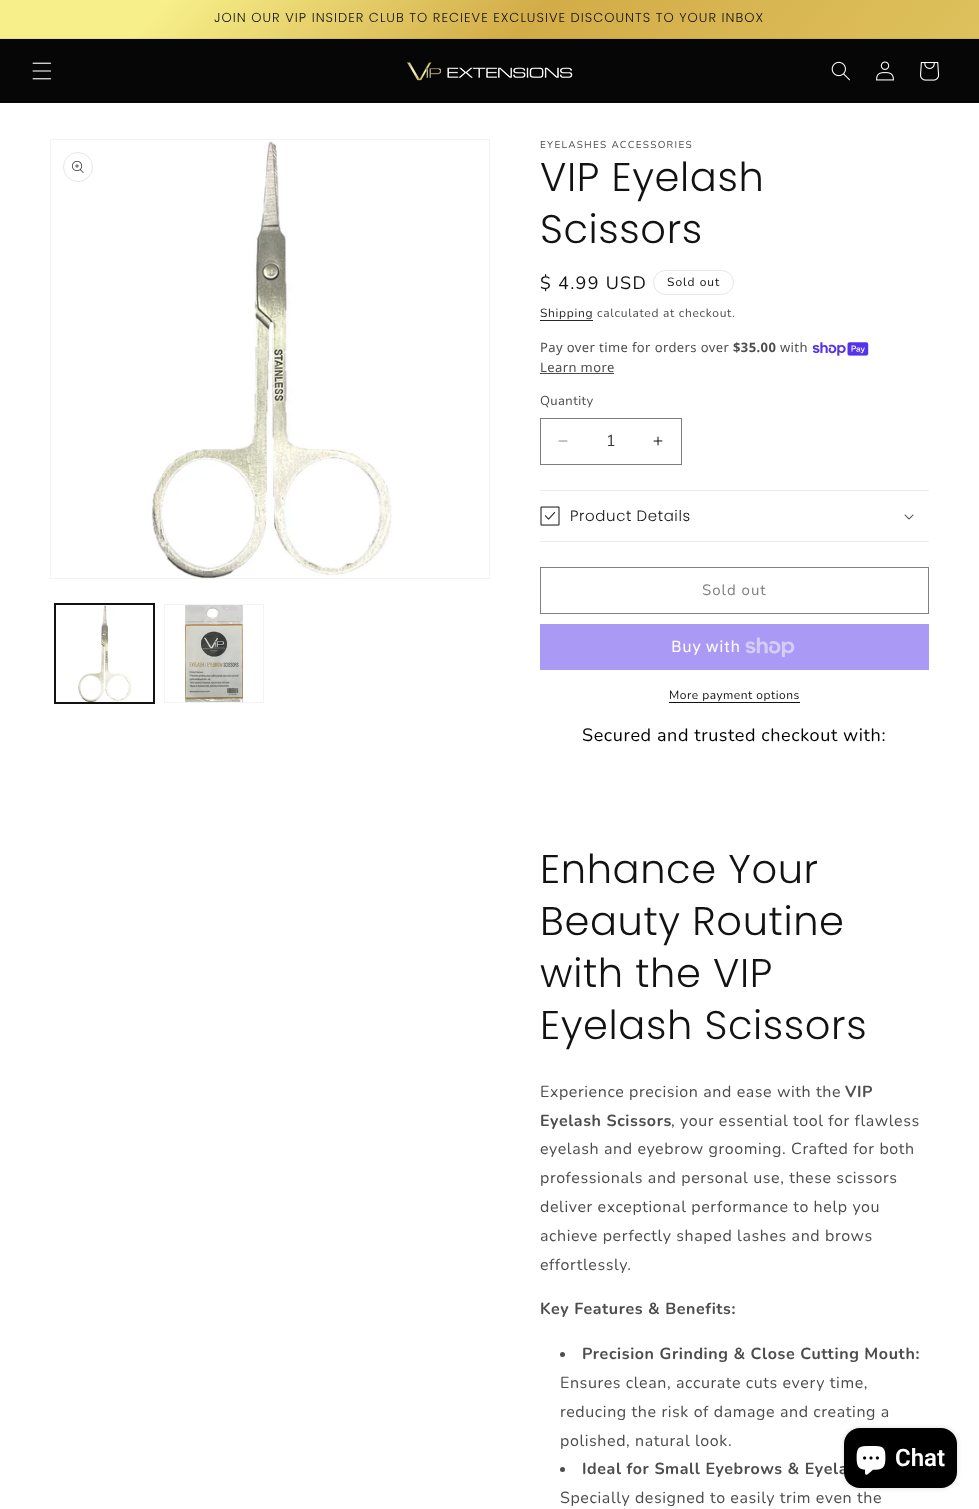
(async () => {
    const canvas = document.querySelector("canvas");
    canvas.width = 979;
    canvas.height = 1509;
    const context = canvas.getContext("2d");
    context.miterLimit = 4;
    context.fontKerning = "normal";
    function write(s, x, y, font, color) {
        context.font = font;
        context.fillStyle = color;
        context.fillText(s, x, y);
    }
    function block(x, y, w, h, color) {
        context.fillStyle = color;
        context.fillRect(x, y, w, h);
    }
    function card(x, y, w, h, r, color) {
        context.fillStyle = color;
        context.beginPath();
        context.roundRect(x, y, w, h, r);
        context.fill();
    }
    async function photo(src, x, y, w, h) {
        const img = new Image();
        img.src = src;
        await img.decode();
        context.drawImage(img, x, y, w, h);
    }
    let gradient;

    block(0, 0, 979, 1509, "rgb(6, 6, 6)");
    gradient = context.createLinearGradient(-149, 159, 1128, 1350);
    gradient.addColorStop(0.07, "rgb(247, 239, 138)");
    gradient.addColorStop(0.23, "rgb(210, 172, 71)");
    gradient.addColorStop(0.84, "rgb(247, 239, 138)");
    context.fillStyle = gradient;
    context.fillRect(0, 0, 979, 38);
    gradient = context.createLinearGradient(-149, 159, 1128, 1350);
    gradient.addColorStop(0.07, "rgb(229, 221, 128)");
    gradient.addColorStop(0.23, "rgb(195, 160, 67)");
    gradient.addColorStop(0.84, "rgb(229, 221, 128)");
    context.fillStyle = gradient;
    context.fillRect(0, 38, 979, 1);
    context.letterSpacing = "1px";
    write("JOIN OUR VIP INSIDER CLUB TO RECIEVE EXCLUSIVE DISCOUNTS TO YOUR INBOX", 214, 22, "300 13px Poppins", "rgb(18, 18, 18)");
    await photo("media/1.png", 32, 62, 20, 18);
    await photo("media/2.png", 407, 62, 166, 19);
    await photo("media/3.png", 831, 61, 19, 20);
    await photo("media/4.png", 876, 61, 18, 20);
    await photo("media/5.png", 920, 62, 20, 19);
    block(0, 103, 979, 1406, "rgb(255, 255, 255)");
    context.strokeStyle = "rgb(243, 243, 243)";
    context.strokeRect(50.5, 139.5, 439, 439);
    context.beginPath();
    context.arc(78, 167, 14.5, 0, Math.PI * 2);
    context.strokeStyle = "rgb(231, 231, 231)";
    context.stroke();
    await photo("media/6.png", 72, 161, 12, 12);
    await photo("media/7.png", 151, 140, 241, 438);
    context.strokeStyle = "rgb(18, 18, 18)";
    context.strokeRect(54.5, 603.5, 100, 100);
    context.strokeRect(55.5, 604.5, 98, 98);
    await photo("media/8.png", 78, 605, 54, 97);
    context.strokeStyle = "rgb(243, 243, 243)";
    context.strokeRect(164.5, 604.5, 99, 98);
    await photo("media/9.png", 184, 605, 60, 97);
    context.letterSpacing = "1.3px";
    write("EYELASHES ACCESSORIES", 540, 148, "10px Nunito", "rgb(77, 77, 77)");
    context.letterSpacing = "0.6px";
    write("VIP Eyelash", 540, 191, "300 40px Poppins", "rgb(18, 18, 18)");
    write("Scissors", 540, 243, "300 40px Poppins", "rgb(18, 18, 18)");
    context.letterSpacing = "1.3px";
    write("$ 4.99 USD", 540, 289, "18px Nunito", "rgb(18, 18, 18)");
    context.beginPath();
    context.roundRect(653.5, 270.5, 80, 24, 12);
    context.strokeStyle = "rgb(231, 231, 231)";
    context.stroke();
    context.letterSpacing = "1px";
    write("Sold out", 667, 286, "12px Nunito", "rgb(18, 18, 18)");
    context.letterSpacing = "0.7px";
    write("Shipping", 540, 317, "12px Nunito", "rgb(38, 38, 38)");
    block(540, 320, 53, 1, "rgb(38, 38, 38)");
    write("calculated at checkout.", 597, 317, "12px Nunito", "rgb(77, 77, 77)");
    context.letterSpacing = "0.4px";
    write("Pay over time for orders over", 540, 352, "13px Noto Sans", "rgb(77, 77, 77)");
    write("$35.00", 733, 352, "bold 13px Noto Sans", "rgb(77, 77, 77)");
    write("with", 780, 352, "13px Noto Sans", "rgb(77, 77, 77)");
    await photo("media/10.png", 812, 342, 57, 14);
    write("Learn more", 540, 372, "13px Noto Sans", "rgb(77, 77, 77)");
    block(540, 373, 74, 1, "rgb(77, 77, 77)");
    write("Quantity", 540, 405, "13px Nunito", "rgb(77, 77, 77)");
    await photo("media/11.png", 558, 440, 10, 2);
    await photo("media/12.png", 653, 436, 10, 10);
    context.strokeStyle = "rgb(125, 125, 125)";
    context.strokeRect(540.5, 418.5, 141, 46);
    context.letterSpacing = "0px";
    write("1", 606, 446, "16px Nunito", "rgb(54, 54, 54)");
    block(540, 490, 389, 1, "rgb(236, 236, 236)");
    block(540, 541, 389, 1, "rgb(236, 236, 236)");
    await photo("media/13.png", 540, 506, 20, 20);
    context.letterSpacing = "0.6px";
    write("Product Details", 570, 521, "300 15px Poppins", "rgb(18, 18, 18)");
    await photo("media/14.png", 904, 514, 10, 6);
    context.strokeStyle = "rgb(128, 128, 128)";
    context.strokeRect(540.5, 567.5, 388, 46);
    context.letterSpacing = "1px";
    write("Sold out", 702, 595, "15px Nunito", "rgb(128, 128, 128)");
    block(540, 624, 389, 46, "rgb(170, 153, 245)");
    context.letterSpacing = "0.6px";
    write("Buy with", 671, 652, "16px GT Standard", "rgb(255, 255, 255)");
    await photo("media/15.png", 745, 637, 50, 20);
    context.letterSpacing = "0.5px";
    write("More payment options", 669, 699, "12px Nunito", "rgb(18, 18, 18)");
    block(669, 702, 131, 1, "rgb(18, 18, 18)");
    context.letterSpacing = "0.6px";
    write("Secured and trusted checkout with:", 582, 741, "18px Nunito", "rgb(0, 0, 0)");
    write("Enhance Your", 540, 883, "300 40px Poppins", "rgb(18, 18, 18)");
    write("Beauty Routine", 540, 935, "300 40px Poppins", "rgb(18, 18, 18)");
    write("with the VIP", 540, 987, "300 40px Poppins", "rgb(18, 18, 18)");
    write("Eyelash Scissors", 540, 1039, "300 40px Poppins", "rgb(18, 18, 18)");
    write("Experience precision and ease with the", 540, 1097, "16px Nunito", "rgb(77, 77, 77)");
    write("VIP", 845, 1097, "bold 16px Nunito", "rgb(77, 77, 77)");
    write("Eyelash Scissors", 540, 1126, "bold 16px Nunito", "rgb(77, 77, 77)");
    write(", your essential tool for flawless", 671, 1126, "16px Nunito", "rgb(77, 77, 77)");
    write("eyelash and eyebrow grooming. Crafted for both", 540, 1154, "16px Nunito", "rgb(77, 77, 77)");
    write("professionals and personal use, these scissors", 540, 1183, "16px Nunito", "rgb(77, 77, 77)");
    write("deliver exceptional performance to help you", 540, 1212, "16px Nunito", "rgb(77, 77, 77)");
    write("achieve perfectly shaped lashes and brows", 540, 1241, "16px Nunito", "rgb(77, 77, 77)");
    write("effortlessly.", 540, 1270, "16px Nunito", "rgb(77, 77, 77)");
    write("Key Features & Benefits:", 540, 1314, "bold 16px Nunito", "rgb(77, 77, 77)");
    context.beginPath();
    context.arc(562.5, 1354.5, 2.5, 0, Math.PI * 2);
    context.fill();
    write("Precision Grinding & Close Cutting Mouth:", 582, 1359, "bold 16px Nunito", "rgb(77, 77, 77)");
    write("Ensures clean, accurate cuts every time,", 560, 1388, "16px Nunito", "rgb(77, 77, 77)");
    write("reducing the risk of damage and creating a", 560, 1417, "16px Nunito", "rgb(77, 77, 77)");
    write("polished, natural look.", 560, 1446, "16px Nunito", "rgb(77, 77, 77)");
    context.beginPath();
    context.arc(562.5, 1469.5, 2.5, 0, Math.PI * 2);
    context.fill();
    write("Ideal for Small Eyebrows & Eyela", 582, 1474, "bold 16px Nunito", "rgb(77, 77, 77)");
    write("Specially designed to easily trim even the", 560, 1503, "16px Nunito", "rgb(77, 77, 77)");
    context.fillStyle = "rgba(0, 0, 0, 0.15)";
    context.filter = "blur(2.5px)";
    context.beginPath();
    context.roundRect(844, 1428, 113, 60, 16);
    context.fill();
    context.filter = "none";
    card(844, 1428, 113, 60, 16, "rgb(0, 0, 0)");
    await photo("media/16.png", 856, 1446, 30, 29);
    context.letterSpacing = "0px";
    write("Chat", 895, 1466, "600 24px Roboto", "rgb(255, 255, 255)");
})();
